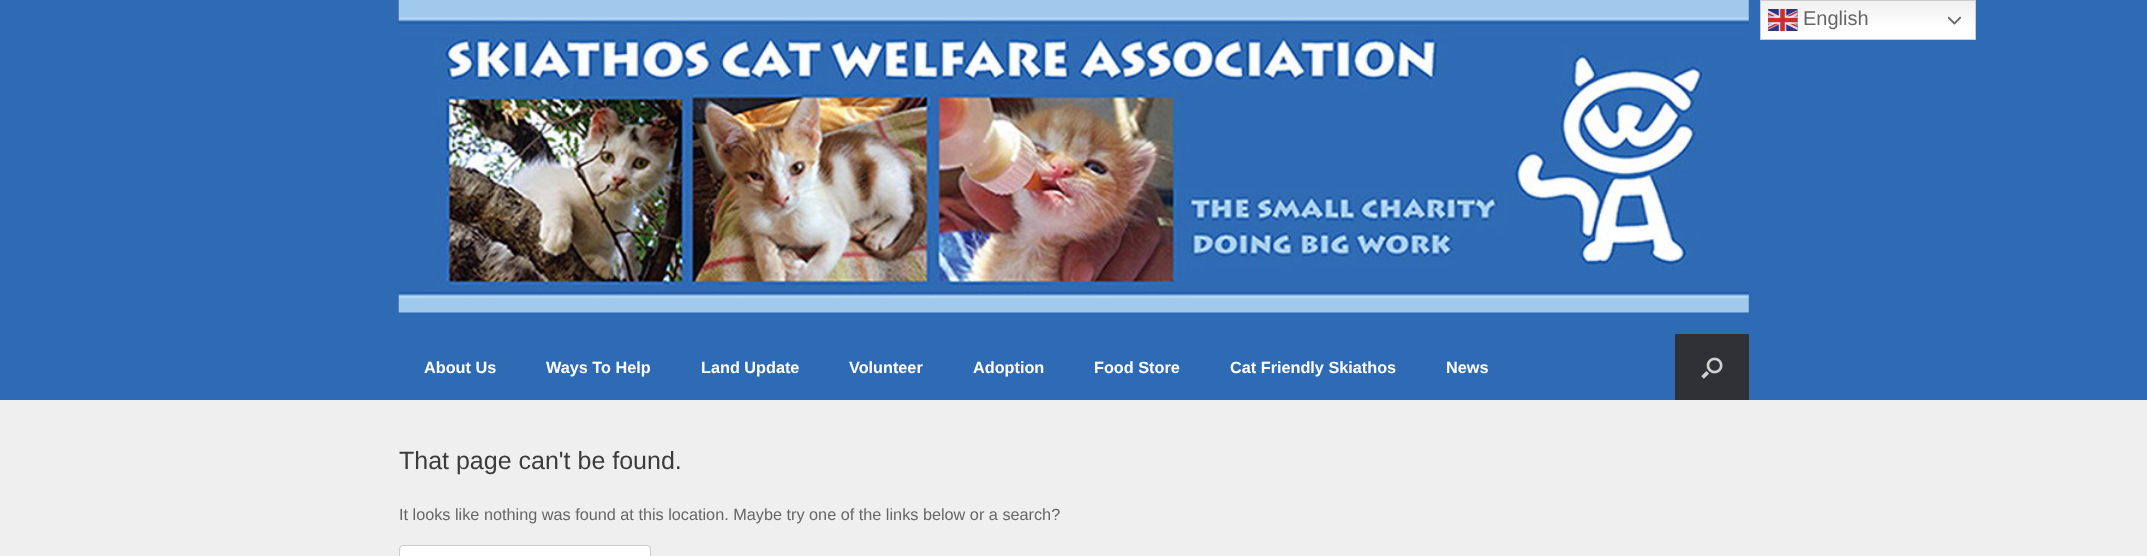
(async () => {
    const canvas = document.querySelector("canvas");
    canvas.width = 2147;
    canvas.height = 556;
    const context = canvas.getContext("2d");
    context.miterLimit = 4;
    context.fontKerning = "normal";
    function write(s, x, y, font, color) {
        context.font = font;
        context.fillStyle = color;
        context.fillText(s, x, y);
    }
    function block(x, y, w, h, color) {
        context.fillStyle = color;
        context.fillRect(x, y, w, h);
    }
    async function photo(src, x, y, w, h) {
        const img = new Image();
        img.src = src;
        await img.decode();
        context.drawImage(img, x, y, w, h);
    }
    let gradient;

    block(0, 0, 2147, 556, "rgb(47, 107, 180)");
    gradient = context.createLinearGradient(1868, 0, 1868, 40);
    gradient.addColorStop(0, "rgb(239, 239, 239)");
    gradient.addColorStop(0.7, "rgb(255, 255, 255)");
    context.fillStyle = gradient;
    context.fillRect(1761, 1, 214, 38);
    context.strokeStyle = "rgb(204, 204, 204)";
    context.strokeRect(1760.5, 0.5, 215, 39);
    await photo("media/1.png", 1768, 8, 30, 24);
    write("English", 1803, 25, "20px Liberation Sans", "rgb(102, 102, 102)");
    await photo("media/2.png", 1948, 16, 13, 9);
    await photo("media/3.png", 398, 0, 1351, 313);
    write("About Us", 424, 373, "bold 16.25px Liberation Sans", "rgb(255, 255, 255)");
    write("Ways To Help", 546, 373, "bold 16.25px Liberation Sans", "rgb(255, 255, 255)");
    write("Land Update", 701, 373, "bold 16.25px Liberation Sans", "rgb(255, 255, 255)");
    write("Volunteer", 849, 373, "bold 16.25px Liberation Sans", "rgb(255, 255, 255)");
    write("Adoption", 973, 373, "bold 16.25px Liberation Sans", "rgb(255, 255, 255)");
    write("Food Store", 1094, 373, "bold 16.25px Liberation Sans", "rgb(255, 255, 255)");
    write("Cat Friendly Skiathos", 1230, 373, "bold 16.25px Liberation Sans", "rgb(255, 255, 255)");
    write("News", 1446, 373, "bold 16.25px Liberation Sans", "rgb(255, 255, 255)");
    block(1675, 334, 74, 66, "rgb(48, 49, 52)");
    await photo("media/4.png", 1701, 357, 22, 22);
    block(0, 400, 2147, 156, "rgb(239, 239, 239)");
    write("That page can't be found.", 399, 469, "25px Liberation Sans", "rgb(59, 59, 59)");
    write("It looks like nothing was found at this location. Maybe try one of the links below or a search?", 399, 520, "16.25px Liberation Sans", "rgb(102, 102, 102)");
    context.fillStyle = "rgb(255, 255, 255)";
    context.beginPath();
    context.roundRect(399.5, 545.5, 251, 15, 3.5);
    context.fill();
    context.stroke();
})();
